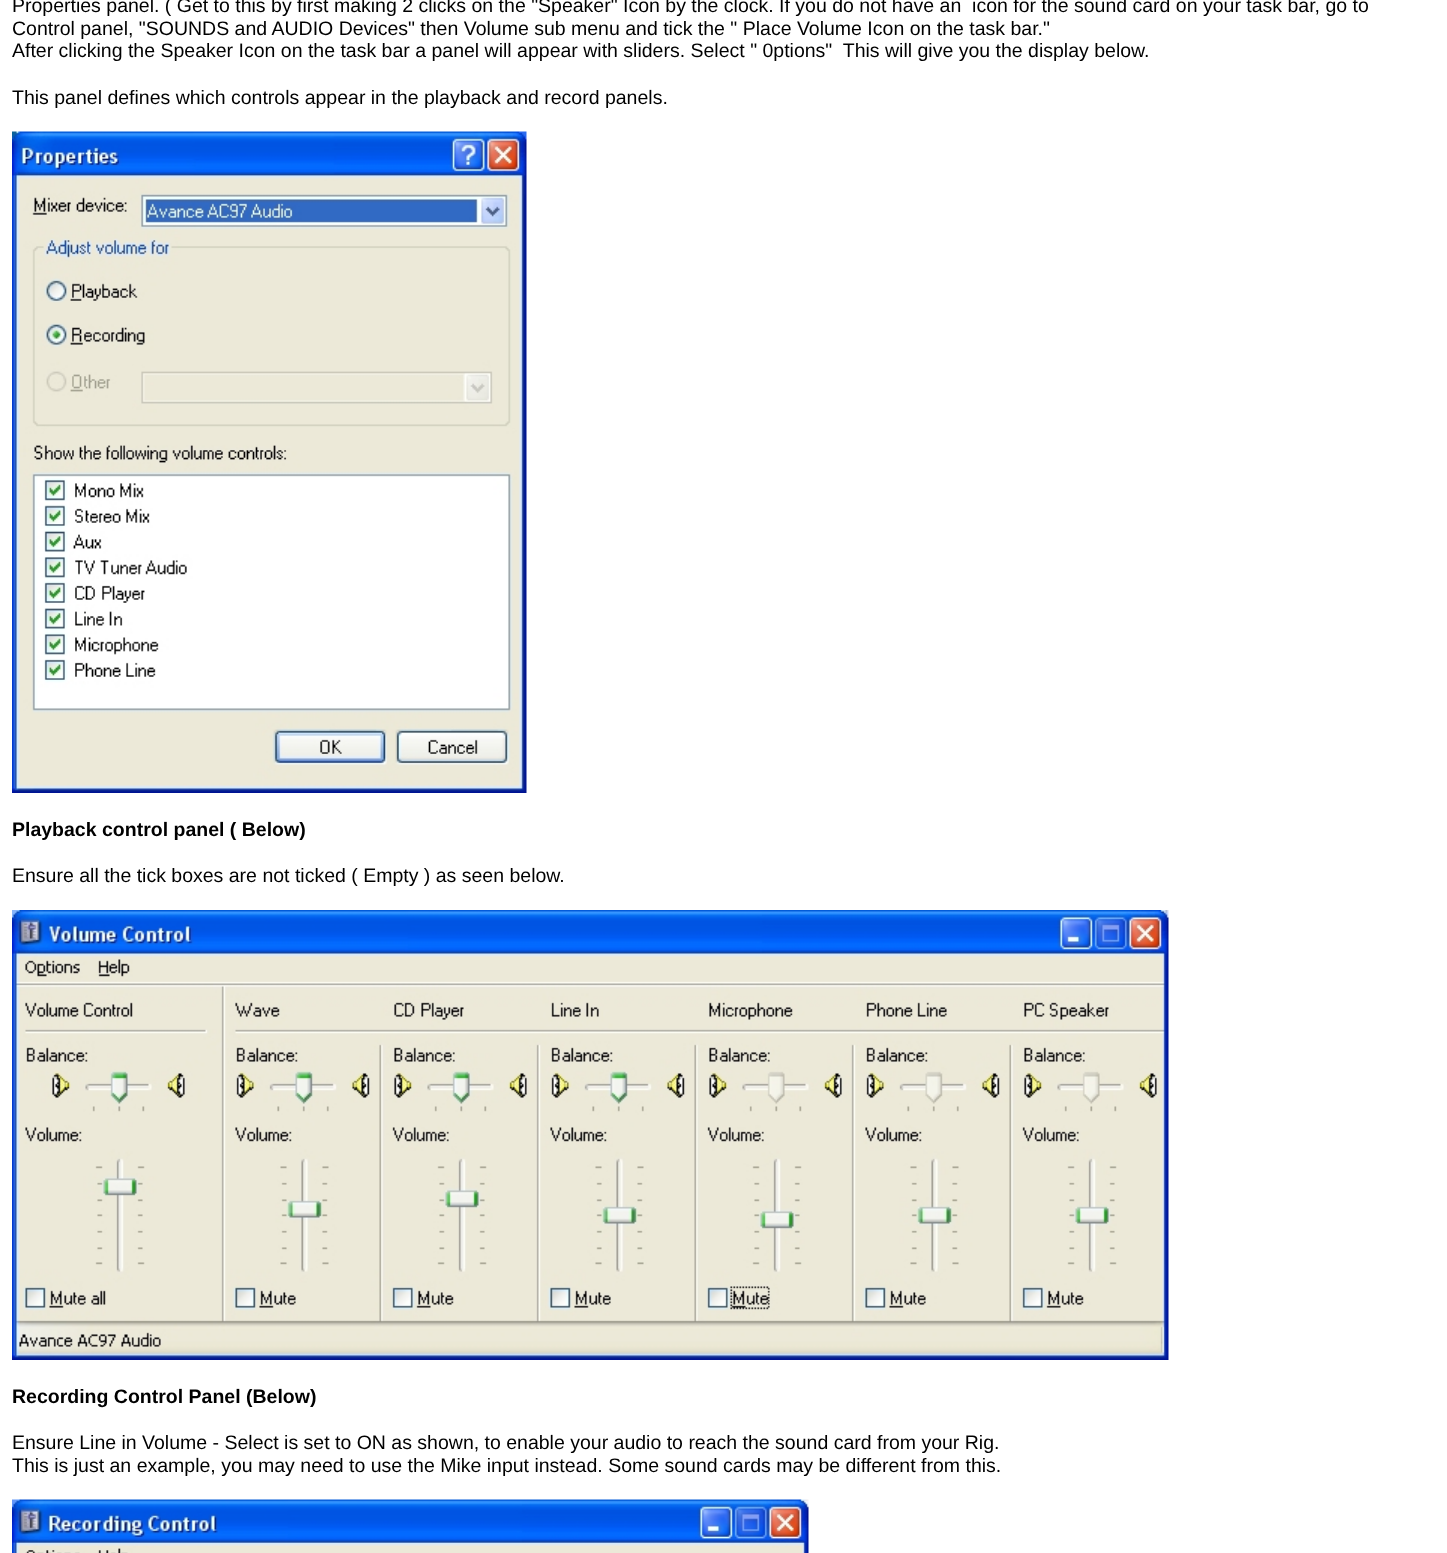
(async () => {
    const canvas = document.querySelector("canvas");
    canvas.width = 1447;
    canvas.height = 1553;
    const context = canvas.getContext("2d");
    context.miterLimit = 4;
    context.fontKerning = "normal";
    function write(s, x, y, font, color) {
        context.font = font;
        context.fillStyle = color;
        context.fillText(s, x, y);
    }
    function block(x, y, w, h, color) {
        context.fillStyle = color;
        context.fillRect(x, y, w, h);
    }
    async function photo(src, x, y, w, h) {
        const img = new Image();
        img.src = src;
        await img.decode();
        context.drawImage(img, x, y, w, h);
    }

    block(0, 0, 1447, 1553, "rgb(255, 255, 255)");
    write("Properties panel. ( Get to this by first making 2 clicks on the \"Speaker\" Icon by the clock. If you do not have an  icon for the sound card on your task bar, go to", 12, 12, "19.5px Liberation Sans", "rgb(0, 0, 0)");
    write("Control panel, \"SOUNDS and AUDIO Devices\" then Volume sub menu and tick the \" Place Volume Icon on the task bar.\"", 12, 35, "19.5px Liberation Sans", "rgb(0, 0, 0)");
    write("After clicking the Speaker Icon on the task bar a panel will appear with sliders. Select \" 0ptions\"  This will give you the display below.", 12, 57, "19.5px Liberation Sans", "rgb(0, 0, 0)");
    write("This panel defines which controls appear in the playback and record panels.", 12, 104, "19.5px Liberation Sans", "rgb(0, 0, 0)");
    await photo("media/1.png", 12, 131, 515, 662);
    write("Playback control panel ( Below)", 12, 836, "bold 19.5px Liberation Sans", "rgb(0, 0, 0)");
    write("Ensure all the tick boxes are not ticked ( Empty ) as seen below.", 12, 882, "19.5px Liberation Sans", "rgb(0, 0, 0)");
    await photo("media/2.png", 12, 910, 1157, 450);
    write("Recording Control Panel (Below)", 12, 1403, "bold 19.5px Liberation Sans", "rgb(0, 0, 0)");
    write("Ensure Line in Volume - Select is set to ON as shown, to enable your audio to reach the sound card from your Rig.", 12, 1449, "19.5px Liberation Sans", "rgb(0, 0, 0)");
    write("This is just an example, you may need to use the Mike input instead. Some sound cards may be different from this.", 12, 1472, "19.5px Liberation Sans", "rgb(0, 0, 0)");
    await photo("media/3.png", 12, 1499, 797, 54);
})();
